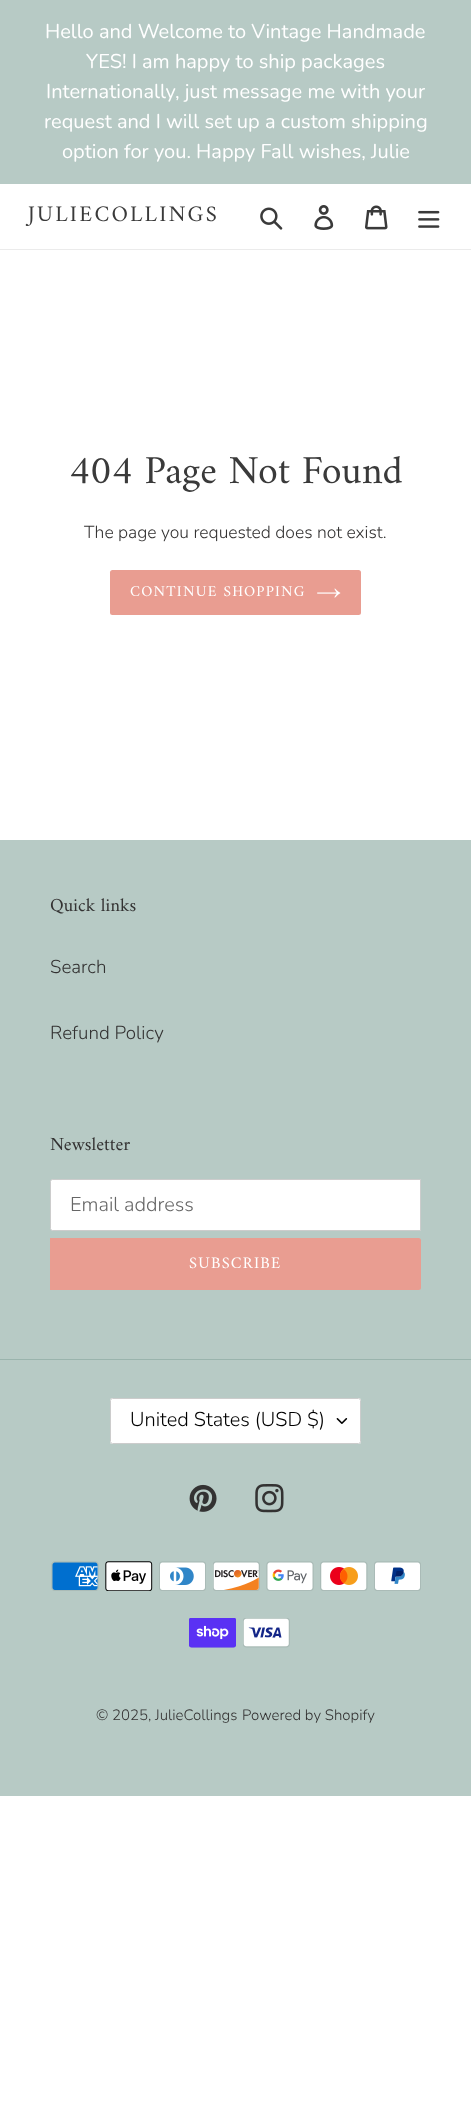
(async () => {
    const canvas = document.querySelector("canvas");
    canvas.width = 471;
    canvas.height = 2113;
    const context = canvas.getContext("2d");
    context.miterLimit = 4;
    context.fontKerning = "normal";
    function write(s, x, y, font, color) {
        context.font = font;
        context.fillStyle = color;
        context.fillText(s, x, y);
    }
    function block(x, y, w, h, color) {
        context.fillStyle = color;
        context.fillRect(x, y, w, h);
    }
    function card(x, y, w, h, r, color) {
        context.fillStyle = color;
        context.beginPath();
        context.roundRect(x, y, w, h, r);
        context.fill();
    }
    async function photo(src, x, y, w, h) {
        const img = new Image();
        img.src = src;
        await img.decode();
        context.drawImage(img, x, y, w, h);
    }

    block(0, 0, 471, 2113, "rgb(255, 255, 255)");
    block(0, 0, 471, 184, "rgb(183, 202, 197)");
    write("Hello and Welcome to Vintage Handmade", 45, 38, "20px Nunito", "rgb(255, 255, 255)");
    write("YES! I am happy to ship packages", 86, 68, "20px Nunito", "rgb(255, 255, 255)");
    write("Internationally, just message me with your", 46, 98, "20px Nunito", "rgb(255, 255, 255)");
    write("request and I will set up a custom shipping", 44, 128, "20px Nunito", "rgb(255, 255, 255)");
    write("option for you. Happy Fall wishes, Julie", 62, 158, "20px Nunito", "rgb(255, 255, 255)");
    block(0, 249, 471, 1, "rgb(235, 235, 235)");
    context.letterSpacing = "2.25px";
    write("JULIECOLLINGS", 28, 221, "22.5px Amiri", "rgb(58, 58, 58)");
    await photo("media/1.png", 260, 207, 23, 23);
    await photo("media/2.png", 314, 205, 20, 25);
    await photo("media/3.png", 365, 205, 23, 25);
    await photo("media/4.png", 418, 210, 22, 18);
    context.letterSpacing = "0px";
    write("404 Page Not Found", 69, 483, "40px Amiri", "rgb(58, 58, 58)");
    write("The page you requested does not exist.", 84, 538, "300 17.5px Nunito", "rgb(51, 50, 50)");
    card(110, 570, 251, 45, 2.5, "rgb(233, 157, 145)");
    context.letterSpacing = "1.25px";
    write("CONTINUE SHOPPING", 130, 596, "15.25px Amiri", "rgb(255, 255, 255)");
    await photo("media/5.png", 317, 588, 24, 10);
    block(0, 840, 471, 956, "rgb(183, 202, 197)");
    context.letterSpacing = "0px";
    write("Quick links", 50, 911, "18.75px Amiri", "rgb(51, 50, 50)");
    write("Search", 50, 973, "300 18.75px Nunito", "rgb(51, 50, 50)");
    write("Refund Policy", 50, 1039, "300 18.75px Nunito", "rgb(51, 50, 50)");
    write("Newsletter", 50, 1150, "18.75px Amiri", "rgb(51, 50, 50)");
    context.fillStyle = "rgb(255, 255, 255)";
    context.beginPath();
    context.roundRect(50.5, 1179.5, 370, 51, [2, 0, 0, 2]);
    context.fill();
    context.strokeStyle = "rgb(204, 204, 204)";
    context.stroke();
    write("Email address", 70, 1211, "300 20px Nunito", "rgb(102, 102, 102)");
    context.fillStyle = "rgb(233, 157, 145)";
    context.beginPath();
    context.roundRect(50, 1238, 371, 52, [0, 2.5, 2.5, 0]);
    context.fill();
    context.letterSpacing = "1.25px";
    write("SUBSCRIBE", 189, 1268, "16.25px Amiri", "rgb(255, 255, 255)");
    block(0, 1359, 471, 1, "rgb(154, 180, 173)");
    card(110, 1398, 251, 46, 2.5, "rgb(255, 255, 255)");
    await photo("media/6.png", 336, 1418, 12, 6);
    context.beginPath();
    context.roundRect(110.5, 1398.5, 250, 45, 2);
    context.stroke();
    context.letterSpacing = "0px";
    write("United States (USD $)", 130, 1426, "300 20px Nunito", "rgb(0, 0, 0)");
    await photo("media/7.png", 189, 1484, 28, 28);
    await photo("media/8.png", 255, 1484, 29, 29);
    await photo("media/9.png", 51, 1561, 48, 30);
    await photo("media/10.png", 105, 1561, 48, 30);
    await photo("media/11.png", 159, 1561, 47, 30);
    await photo("media/12.png", 213, 1561, 47, 30);
    await photo("media/13.png", 266, 1561, 48, 30);
    await photo("media/14.png", 320, 1561, 48, 30);
    await photo("media/15.png", 374, 1561, 47, 30);
    await photo("media/16.png", 189, 1618, 47, 30);
    await photo("media/17.png", 243, 1618, 47, 30);
    write("© 2025, JulieCollings", 96, 1720, "300 15px Nunito", "rgb(51, 50, 50)");
    write("Powered by Shopify", 242, 1720, "300 15px Nunito", "rgb(51, 50, 50)");
})();
